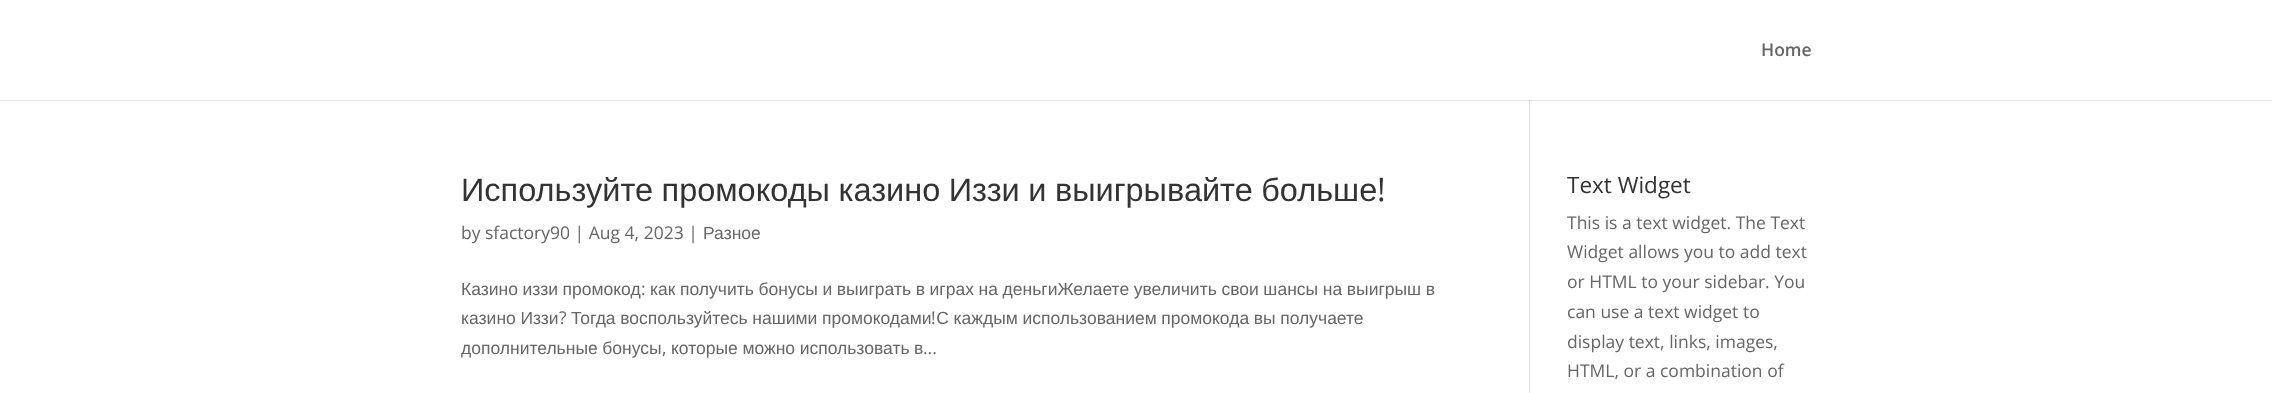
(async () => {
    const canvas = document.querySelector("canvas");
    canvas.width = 2272;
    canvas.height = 393;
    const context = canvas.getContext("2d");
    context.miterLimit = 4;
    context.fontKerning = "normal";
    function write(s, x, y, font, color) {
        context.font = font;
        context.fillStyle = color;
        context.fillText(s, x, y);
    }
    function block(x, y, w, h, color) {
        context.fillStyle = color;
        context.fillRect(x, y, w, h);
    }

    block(0, 0, 2272, 393, "rgb(255, 255, 255)");
    block(1529, 100, 1, 293, "rgb(226, 226, 226)");
    context.fillStyle = "rgba(0, 0, 0, 0.1)";
    context.beginPath();
    context.moveTo(0, 100);
    context.lineTo(0, 101);
    context.lineTo(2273, 101);
    context.lineTo(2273, 1);
    context.lineTo(2272, 1);
    context.lineTo(2272, 100);
    context.closePath();
    context.fill();
    write("Home", 1761, 56, "600 17.5px Open Sans", "rgb(102, 102, 102)");
    context.wordSpacing = "-0.5px";
    write("Используйте промокоды казино Иззи и выигрывайте больше", 461, 201, "32.5px Liberation Sans", "rgb(51, 51, 51)");
    context.wordSpacing = "0px";
    write("!", 1377, 201, "32.5px Open Sans", "rgb(51, 51, 51)");
    write("by sfactory90 | Aug 4, 2023 |", 461, 239, "17.5px Open Sans", "rgb(102, 102, 102)");
    write("Разное", 703, 239, "17.5px Liberation Sans", "rgb(102, 102, 102)");
    context.wordSpacing = "-0.25px";
    write("Казино иззи промокод", 461, 295, "17.5px Liberation Sans", "rgb(102, 102, 102)");
    context.wordSpacing = "0px";
    write(":", 641, 295, "17.5px Open Sans", "rgb(102, 102, 102)");
    context.wordSpacing = "-0.25px";
    write("как получить бонусы и выиграть в играх на деньгиЖелаете увеличить свои шансы на выигрыш в", 650, 295, "17.5px Liberation Sans", "rgb(102, 102, 102)");
    write("казино Иззи", 461, 324, "17.5px Liberation Sans", "rgb(102, 102, 102)");
    context.wordSpacing = "0px";
    write("?", 559, 324, "17.5px Open Sans", "rgb(102, 102, 102)");
    context.wordSpacing = "-0.25px";
    write("Тогда воспользуйтесь нашими промокодами С каждым использованием промокода вы получаете", 571, 324, "17.5px Liberation Sans", "rgb(102, 102, 102)");
    context.wordSpacing = "0px";
    write("!", 931, 324, "17.5px Open Sans", "rgb(102, 102, 102)");
    context.wordSpacing = "-0.25px";
    write("дополнительные бонусы", 461, 354, "17.5px Liberation Sans", "rgb(102, 102, 102)");
    context.wordSpacing = "0px";
    write(",", 662, 354, "17.5px Open Sans", "rgb(102, 102, 102)");
    context.wordSpacing = "-0.25px";
    write("которые можно использовать в", 671, 354, "17.5px Liberation Sans", "rgb(102, 102, 102)");
    context.wordSpacing = "0px";
    write("...", 923, 354, "17.5px Open Sans", "rgb(102, 102, 102)");
    write("Text Widget", 1567, 193, "22.5px Open Sans", "rgb(51, 51, 51)");
    write("This is a text widget. The Text", 1567, 229, "17.5px Open Sans", "rgb(102, 102, 102)");
    write("Widget allows you to add text", 1567, 258, "17.5px Open Sans", "rgb(102, 102, 102)");
    write("or HTML to your sidebar. You", 1567, 288, "17.5px Open Sans", "rgb(102, 102, 102)");
    write("can use a text widget to", 1567, 318, "17.5px Open Sans", "rgb(102, 102, 102)");
    write("display text, links, images,", 1567, 348, "17.5px Open Sans", "rgb(102, 102, 102)");
    write("HTML, or a combination of", 1567, 377, "17.5px Open Sans", "rgb(102, 102, 102)");
})();
